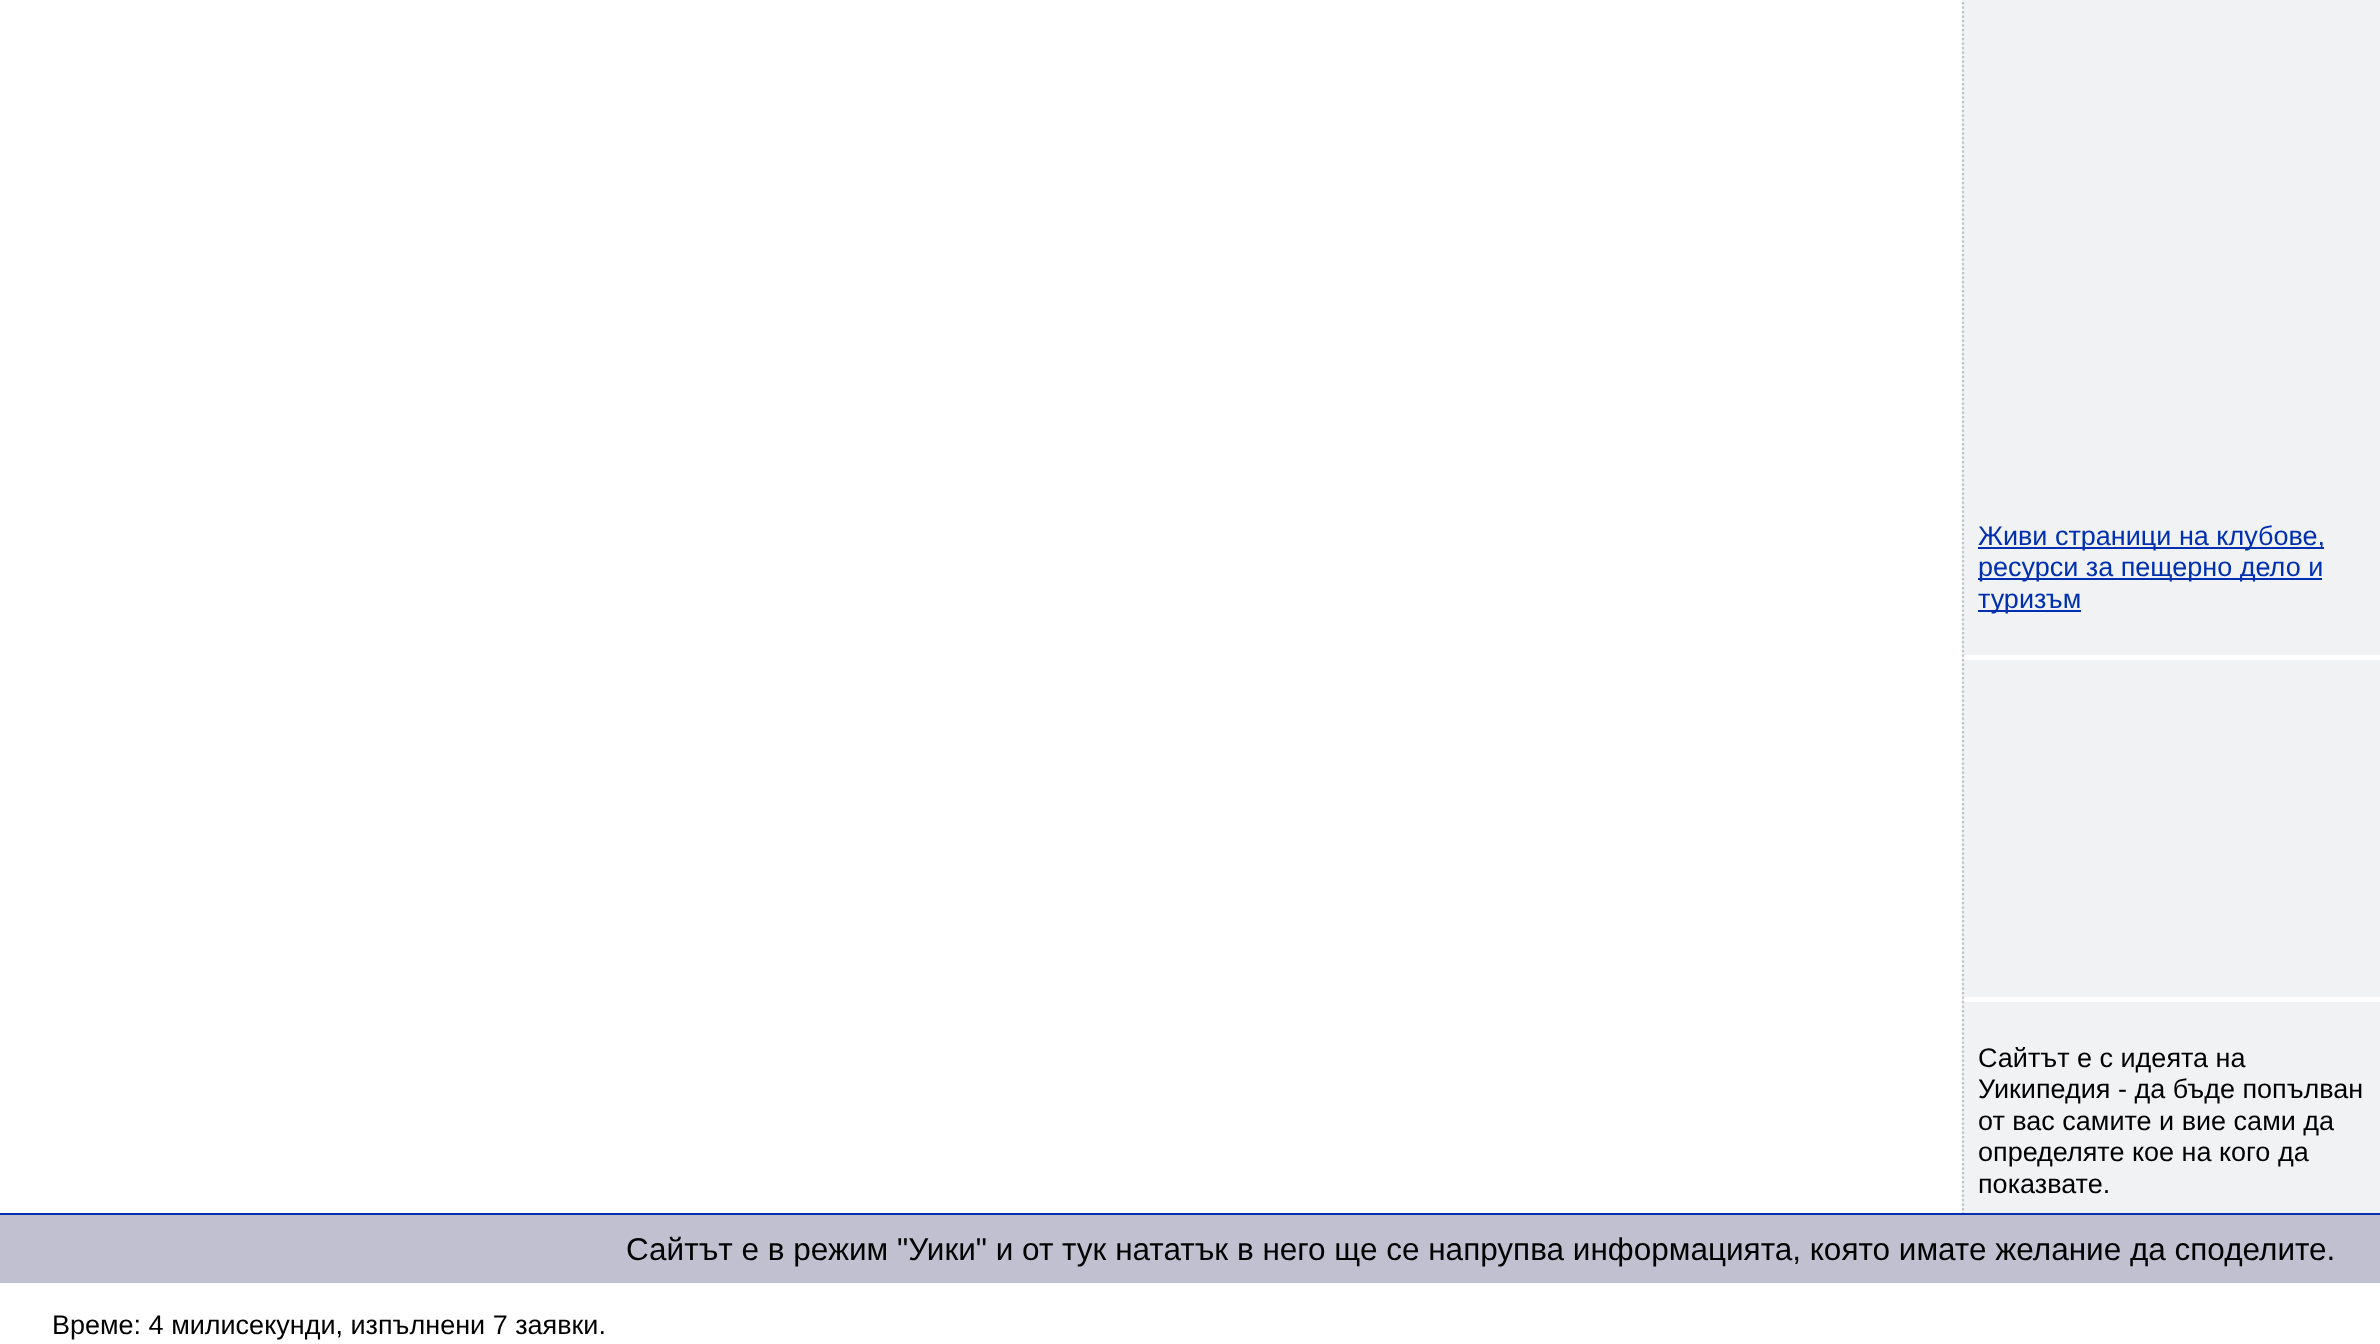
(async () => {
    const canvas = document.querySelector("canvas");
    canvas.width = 2380;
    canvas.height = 1344;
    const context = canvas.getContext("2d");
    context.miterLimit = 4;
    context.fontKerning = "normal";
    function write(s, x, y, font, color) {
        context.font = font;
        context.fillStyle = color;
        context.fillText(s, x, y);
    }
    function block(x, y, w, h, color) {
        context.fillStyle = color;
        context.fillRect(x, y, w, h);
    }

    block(0, 0, 2380, 1344, "rgb(255, 255, 255)");
    block(1962, 0, 418, 1213, "rgb(240, 242, 243)");
    context.beginPath();
    context.moveTo(1963, -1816);
    context.lineTo(1963, 1213);
    context.strokeStyle = "rgb(192, 192, 208)";
    context.lineWidth = 2.2;
    context.setLineDash([2.25, 2.25]);
    context.stroke();
    block(1978, 547, 346, 2, "rgb(0, 48, 176)");
    write("Живи страници на клубове,", 1978, 545, "27px Liberation Sans", "rgb(0, 48, 176)");
    block(1978, 578, 344, 2, "rgb(0, 48, 176)");
    write("ресурси за пещерно дело и", 1978, 576, "27px Liberation Sans", "rgb(0, 48, 176)");
    block(1978, 610, 103, 2, "rgb(0, 48, 176)");
    write("туризъм", 1978, 608, "27px Liberation Sans", "rgb(0, 48, 176)");
    block(1964, 655, 416, 5, "rgb(255, 255, 255)");
    block(1964, 997, 416, 5, "rgb(255, 255, 255)");
    write("Сайтът е с идеята на", 1978, 1067, "27px Liberation Sans", "rgb(0, 0, 0)");
    write("Уикипедия - да бъде попълван", 1978, 1098, "27px Liberation Sans", "rgb(0, 0, 0)");
    write("от вас самите и вие сами да", 1978, 1130, "27px Liberation Sans", "rgb(0, 0, 0)");
    write("определяте кое на кого да", 1978, 1161, "27px Liberation Sans", "rgb(0, 0, 0)");
    write("показвате.", 1978, 1193, "27px Liberation Sans", "rgb(0, 0, 0)");
    block(0, 1215, 2380, 68, "rgb(192, 192, 208)");
    block(0, 1213, 2380, 2, "rgb(0, 48, 176)");
    write("Сайтът е в режим \"Уики\" и от тук нататък в него ще се напрупва информацията, която имате желание да споделите.", 626, 1260, "31.5px Liberation Sans", "rgb(0, 0, 0)");
    write("Време: 4 милисекунди, изпълнени 7 заявки.", 52, 1334, "27px Liberation Sans", "rgb(0, 0, 0)");
})();
